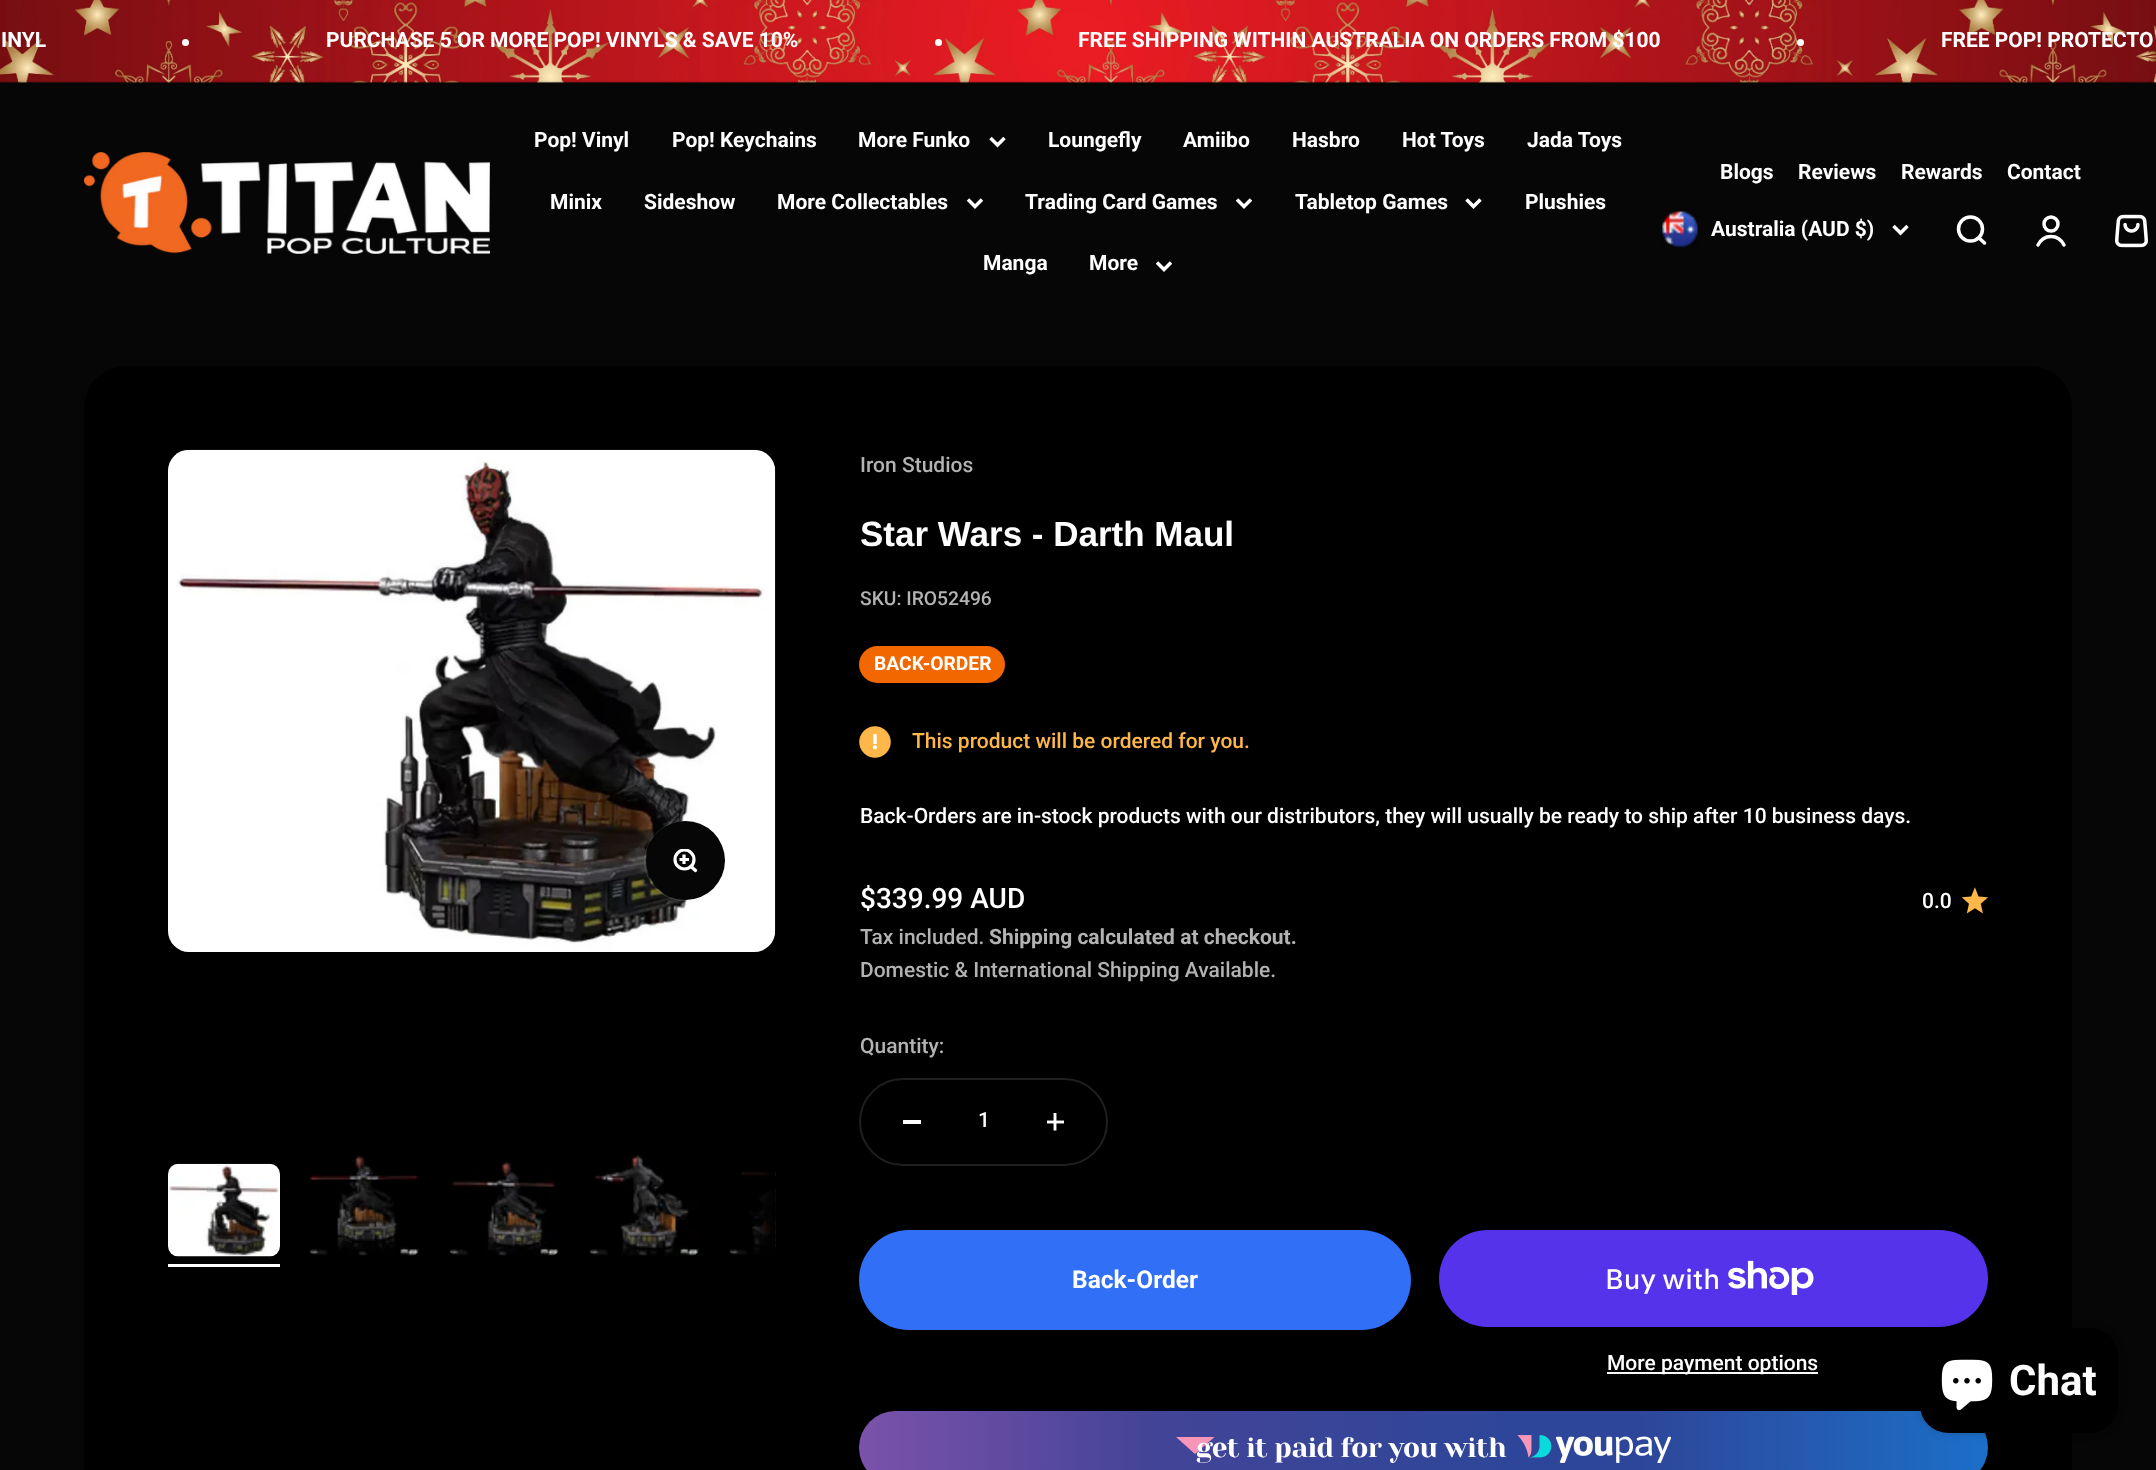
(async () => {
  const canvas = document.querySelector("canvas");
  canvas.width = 2156;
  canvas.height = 1470;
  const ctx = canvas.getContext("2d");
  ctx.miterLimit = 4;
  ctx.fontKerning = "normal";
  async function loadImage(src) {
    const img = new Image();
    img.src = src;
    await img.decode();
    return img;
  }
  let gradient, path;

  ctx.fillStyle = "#060606";
  ctx.fillRect(0, 0, 2156, 1470);
  ctx.drawImage(await loadImage("img/1.png"), 0, 0, 2156, 83);
  ctx.fillStyle = "#ffffff";
  ctx.beginPath();
  ctx.arc(185.5, 42.5, 3.5, 0, Math.PI * 2);
  ctx.fill();
  ctx.beginPath();
  ctx.arc(938.5, 42.5, 3.5, 0, Math.PI * 2);
  ctx.fill();
  ctx.beginPath();
  ctx.arc(1800.5, 42.5, 3.5, 0, Math.PI * 2);
  ctx.fill();
  ctx.drawImage(await loadImage("img/2.png"), 84, 152, 406, 102);
  path = new Path2D("M990.5 138L997.5 145L1004.5 138");
  ctx.strokeStyle = "#ffffff";
  ctx.lineWidth = 3.5;
  ctx.stroke(path);
  path = new Path2D("M968 199.5L975 206.5L982 199.5");
  ctx.stroke(path);
  path = new Path2D("M1237 199.5L1244 206.5L1251 199.5");
  ctx.stroke(path);
  path = new Path2D("M1466.5 199.5L1473.5 206.5L1480.5 199.5");
  ctx.stroke(path);
  path = new Path2D("M1157 262.5L1164 269.5L1171 262.5");
  ctx.stroke(path);
  ctx.drawImage(await loadImage("img/3.png"), 1662, 211, 36, 37);
  path = new Path2D("M1893.5 226L1900.5 233L1907.5 226");
  ctx.stroke(path);
  ctx.beginPath();
  ctx.arc(1970.5, 229, 12, 0, Math.PI * 2);
  ctx.stroke();
  path = new Path2D("M1979 238L1984.5 243");
  ctx.lineCap = "round";
  ctx.lineJoin = "round";
  ctx.stroke(path);
  ctx.beginPath();
  ctx.arc(2051, 224, 7, 0, Math.PI * 2);
  ctx.stroke();
  path = new Path2D("M2038 245C2043.5 233.5 2058.5 233.5 2064 245");
  ctx.lineJoin = "miter";
  ctx.stroke(path);
  ctx.drawImage(await loadImage("img/4.png"), 2115, 214, 33, 34);
  ctx.fillStyle = "#000000";
  ctx.beginPath();
  ctx.roundRect(84, 366, 1988, 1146, 42);
  ctx.fill();
  ctx.drawImage(await loadImage("img/5.png"), 168, 449, 608, 503);
  ctx.beginPath();
  ctx.roundRect(644.5, 821.5, 80, 79, 39.5);
  ctx.strokeStyle = "rgba(255, 255, 255, 0.12)";
  ctx.lineWidth = 1;
  ctx.stroke();
  ctx.fillStyle = "#060606";
  ctx.beginPath();
  ctx.arc(685.5, 860.5, 39.5, 0, Math.PI * 2);
  ctx.fill();
  ctx.save();
  ctx.beginPath();
  ctx.rect(672, 849, 25, 24);
  ctx.clip();
  ctx.beginPath();
  ctx.arc(684.5, 859.5, 9.5, 0, Math.PI * 2);
  ctx.strokeStyle = "#ffffff";
  ctx.lineWidth = 3.2;
  ctx.stroke();
  ctx.restore();
  path = new Path2D("M691 866.5L695.5 870.5");
  ctx.strokeStyle = "#ffffff";
  ctx.lineWidth = 3.2;
  ctx.lineJoin = "round";
  ctx.stroke(path);
  path = new Path2D("M684 854.5V864M679.5 859.5H689");
  ctx.lineCap = "butt";
  ctx.lineJoin = "miter";
  ctx.stroke(path);
  ctx.drawImage(await loadImage("img/6.png"), 168, 1163, 112, 94);
  ctx.fillStyle = "#ffffff";
  ctx.fillRect(168, 1264, 112, 3);
  ctx.drawImage(await loadImage("img/7.png"), 309, 1155, 110, 101);
  ctx.drawImage(await loadImage("img/8.png"), 449, 1161, 110, 95);
  ctx.drawImage(await loadImage("img/9.png"), 589, 1154, 110, 102);
  ctx.drawImage(await loadImage("img/10.png"), 729, 1171, 47, 85);
  gradient = ctx.createLinearGradient(775, 1131, 723, 1131);
  gradient.addColorStop(0, "#000000");
  gradient.addColorStop(1, "rgba(0, 0, 0, 0)");
  ctx.fillStyle = gradient;
  ctx.fillRect(730, 1171, 45, 85);
  ctx.fillStyle = "#f36700";
  ctx.beginPath();
  ctx.roundRect(859, 646, 146, 37, 18.5);
  ctx.fill();
  ctx.drawImage(await loadImage("img/11.png"), 859, 726, 32, 32);
  ctx.drawImage(await loadImage("img/12.png"), 1962, 887, 26, 27);
  ctx.beginPath();
  ctx.roundRect(860, 1079, 247, 86, 43);
  ctx.strokeStyle = "#1f1f1f";
  ctx.lineWidth = 2;
  ctx.stroke();
  ctx.fillStyle = "#ffffff";
  ctx.fillRect(903, 1120, 18, 4);
  path = new Path2D("M1055 1113V1130.5");
  ctx.strokeStyle = "#ffffff";
  ctx.lineWidth = 2.9;
  ctx.stroke(path);
  ctx.save();
  ctx.beginPath();
  ctx.rect(1047, 1113, 17, 18);
  ctx.clip();
  path = new Path2D("M1046.5 1122H1064");
  ctx.stroke(path);
  ctx.restore();
  ctx.fillStyle = "#316ff6";
  ctx.beginPath();
  ctx.roundRect(859, 1230, 552, 100, 50);
  ctx.fill();
  ctx.fillStyle = "#5433eb";
  ctx.beginPath();
  ctx.roundRect(1439, 1230, 549, 97, 48.5);
  ctx.fill();
  ctx.drawImage(await loadImage("img/13.png"), 1728, 1260, 86, 35);
  ctx.fillStyle = "#ffffff";
  ctx.fillRect(1607, 1372, 211, 2);
  gradient = ctx.createLinearGradient(859, 1447, 1988, 1447);
  gradient.addColorStop(0, "#7b52aa");
  gradient.addColorStop(0.26, "#434497");
  gradient.addColorStop(0.57, "#2e4699");
  gradient.addColorStop(0.69, "#2e4699");
  gradient.addColorStop(1, "#1b6fc8");
  ctx.fillStyle = gradient;
  ctx.beginPath();
  ctx.roundRect(859, 1411, 1129, 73, 36.5);
  ctx.fill();
  ctx.fillStyle = "#f796b9";
  path = new Path2D("M1176 1437H1214.5L1195 1454Z");
  ctx.fill(path);
  ctx.drawImage(await loadImage("img/14.png"), 1517, 1435, 154, 28);
  ctx.fillStyle = "rgba(0, 0, 0, 0.15)";
  ctx.filter = "blur(4.5px)";
  ctx.beginPath();
  ctx.roundRect(1920, 1328, 198, 105, 28);
  ctx.fill();
  ctx.filter = "none";
  ctx.fillStyle = "#000000";
  ctx.beginPath();
  ctx.roundRect(1920, 1328, 198, 105, 28);
  ctx.fill();
  ctx.drawImage(await loadImage("img/15.png"), 1941, 1359, 52, 52);
  ctx.font = "bold 21px Roboto";
  ctx.fillStyle = "#ffffff";
  for (const [text, x, y] of [
    ["INYL", 1, 47],
    ["PURCHASE 5 OR MORE POP! VINYLS & SAVE 10%", 326, 47],
    ["FREE SHIPPING WITHIN AUSTRALIA ON ORDERS FROM $100", 1078, 47],
    ["FREE POP! PROTECTO", 1941, 47],
    ["Pop! Vinyl", 534, 147],
    ["Pop! Keychains", 672, 147],
    ["More Funko", 858, 147],
    ["Loungefly", 1048, 147],
    ["Amiibo", 1183, 147],
    ["Hasbro", 1292, 147],
    ["Hot Toys", 1402, 147],
    ["Jada Toys", 1527, 147],
    ["Minix", 550, 209],
    ["Sideshow", 644, 209],
    ["More Collectables", 777, 209],
    ["Trading Card Games", 1025, 209],
    ["Tabletop Games", 1295, 209],
    ["Plushies", 1525, 209],
    ["Manga", 983, 270],
    ["More", 1089, 270],
    ["Blogs", 1720, 179],
    ["Reviews", 1798, 179],
    ["Rewards", 1901, 179],
    ["Contact", 2007, 179],
    ["Australia (AUD $)", 1711, 236],
  ]) {
    ctx.fillText(text, x, y);
  }
  ctx.font = "500 21px Roboto";
  ctx.fillStyle = "#b3b3b3";
  ctx.fillText("Iron Studios", 860, 472);
  ctx.font = "bold 35px Liberation Sans";
  ctx.fillStyle = "#ffffff";
  ctx.fillText("Star Wars - Darth Maul", 860, 546);
  ctx.font = "500 19.25px Roboto";
  ctx.fillStyle = "#b3b3b3";
  ctx.fillText("SKU: IRO52496", 860, 605);
  ctx.font = "bold 19.25px Roboto";
  ctx.fillStyle = "#ffffff";
  ctx.fillText("BACK-ORDER", 874, 670);
  ctx.font = "500 21px Roboto";
  ctx.fillStyle = "#ffb74a";
  ctx.fillText("This product will be ordered for you.", 912, 748);
  ctx.fillStyle = "#ffffff";
  ctx.fillText("Back-Orders are in-stock products with our distributors, they will usually be ready to ship after 10 business days.", 860, 823);
  ctx.font = "500 28px Roboto";
  ctx.fillText("$339.99 AUD", 860, 908);
  ctx.font = "500 21px Roboto";
  ctx.fillText("0.0", 1922, 908);
  ctx.fillStyle = "#b3b3b3";
  ctx.fillText("Tax included.", 860, 944);
  ctx.font = "bold 21px Roboto";
  ctx.fillText("Shipping calculated at checkout.", 989, 944);
  ctx.font = "500 21px Roboto";
  ctx.fillText("Domestic & International Shipping Available.", 860, 977);
  ctx.fillText("Quantity:", 860, 1053);
  ctx.fillStyle = "#ffffff";
  ctx.fillText("1", 978, 1127);
  ctx.font = "bold 24.5px Roboto";
  ctx.fillText("Back-Order", 1072, 1288);
  ctx.font = "500 28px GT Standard";
  ctx.fillText("Buy with", 1605, 1289);
  ctx.font = "500 21px Roboto";
  ctx.fillText("More payment options", 1607, 1370);
  ctx.letterSpacing = "-0.6px";
  ctx.font = "28px Yeseva One";
  ctx.fillText("get it paid for you with", 1196, 1457);
  ctx.letterSpacing = "0px";
  ctx.font = "bold 42px Roboto";
  ctx.fillText("Chat", 2009, 1395);
})();
